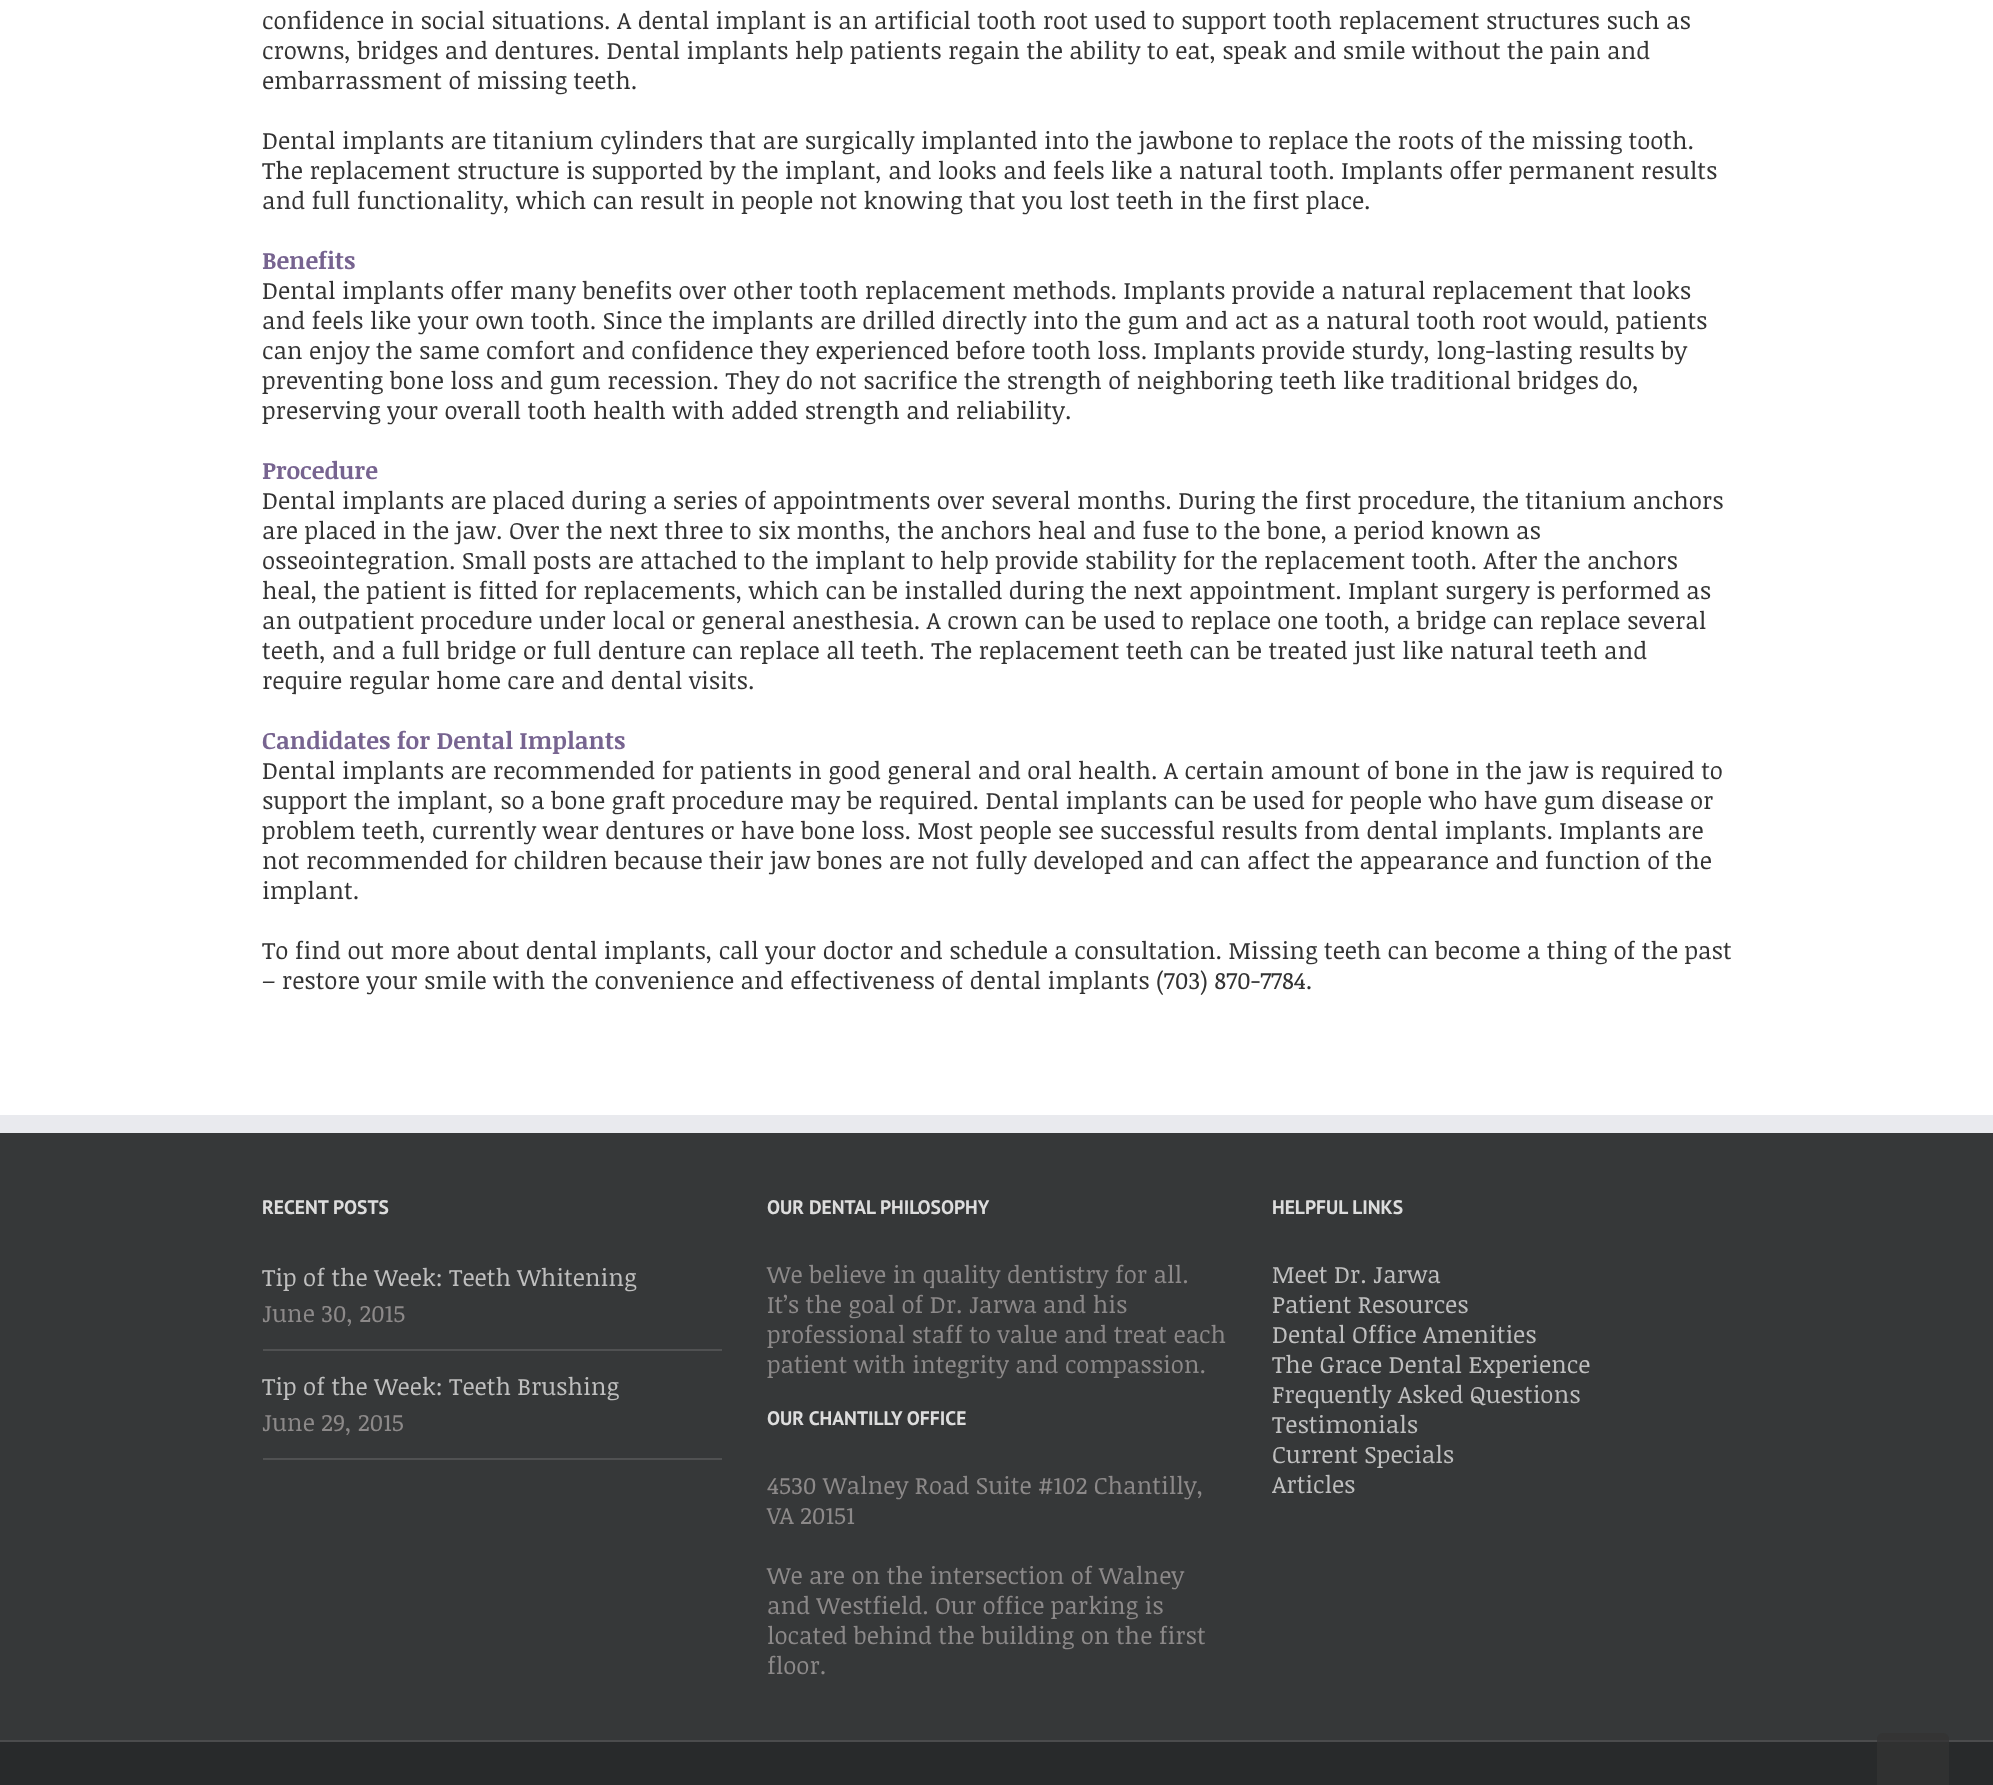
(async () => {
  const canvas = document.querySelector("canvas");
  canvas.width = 1993;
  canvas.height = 1785;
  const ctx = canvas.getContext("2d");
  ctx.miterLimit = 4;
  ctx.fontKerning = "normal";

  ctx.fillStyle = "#ffffff";
  ctx.fillRect(0, 0, 1993, 1785);
  for (const [x, y, w, h, color] of [
    [0, 1133, 1993, 607, "#363839"],
    [0, 1115, 1993, 18, "#e9eaee"],
    [263, 1349, 459, 2, "#505152"],
    [263, 1458, 459, 2, "#505152"],
    [0, 1742, 1993, 43, "#282a2b"],
    [0, 1740, 1993, 2, "#4b4c4d"],
  ]) {
    ctx.fillStyle = color;
    ctx.fillRect(x, y, w, h);
  }
  ctx.fillStyle = "rgba(51, 51, 51, 0.78)";
  ctx.beginPath();
  ctx.roundRect(1877, 1733, 72, 52, [6, 6, 0, 0]);
  ctx.fill();
  ctx.font = "24px Noticia Text";
  ctx.fillStyle = "#333333";
  for (const [text, x, y] of [
    ["confidence in social situations. A dental implant is an artificial tooth root used to support tooth replacement structures such as", 262, 29],
    ["crowns, bridges and dentures. Dental implants help patients regain the ability to eat, speak and smile without the pain and", 262, 59],
    ["embarrassment of missing teeth.", 262, 89],
    ["Dental implants are titanium cylinders that are surgically implanted into the jawbone to replace the roots of the missing tooth.", 262, 149],
    ["The replacement structure is supported by the implant, and looks and feels like a natural tooth. Implants offer permanent results", 262, 179],
    ["and full functionality, which can result in people not knowing that you lost teeth in the first place.", 262, 209],
  ]) {
    ctx.fillText(text, x, y);
  }
  ctx.font = "bold 24px Noticia Text";
  ctx.fillStyle = "#776490";
  ctx.fillText("Benefits", 262, 269);
  ctx.font = "24px Noticia Text";
  ctx.fillStyle = "#333333";
  for (const [text, x, y] of [
    ["Dental implants offer many benefits over other tooth replacement methods. Implants provide a natural replacement that looks", 262, 299],
    ["and feels like your own tooth. Since the implants are drilled directly into the gum and act as a natural tooth root would, patients", 262, 329],
    ["can enjoy the same comfort and confidence they experienced before tooth loss. Implants provide sturdy, long-lasting results by", 262, 359],
    ["preventing bone loss and gum recession. They do not sacrifice the strength of neighboring teeth like traditional bridges do,", 262, 389],
    ["preserving your overall tooth health with added strength and reliability.", 262, 419],
  ]) {
    ctx.fillText(text, x, y);
  }
  ctx.font = "bold 24px Noticia Text";
  ctx.fillStyle = "#776490";
  ctx.fillText("Procedure", 262, 479);
  ctx.font = "24px Noticia Text";
  ctx.fillStyle = "#333333";
  for (const [text, x, y] of [
    ["Dental implants are placed during a series of appointments over several months. During the first procedure, the titanium anchors", 262, 509],
    ["are placed in the jaw. Over the next three to six months, the anchors heal and fuse to the bone, a period known as", 262, 539],
    ["osseointegration. Small posts are attached to the implant to help provide stability for the replacement tooth. After the anchors", 262, 569],
    ["heal, the patient is fitted for replacements, which can be installed during the next appointment. Implant surgery is performed as", 262, 599],
    ["an outpatient procedure under local or general anesthesia. A crown can be used to replace one tooth, a bridge can replace several", 262, 629],
    ["teeth, and a full bridge or full denture can replace all teeth. The replacement teeth can be treated just like natural teeth and", 262, 659],
    ["require regular home care and dental visits.", 262, 689],
  ]) {
    ctx.fillText(text, x, y);
  }
  ctx.font = "bold 24px Noticia Text";
  ctx.fillStyle = "#776490";
  ctx.fillText("Candidates for Dental Implants", 262, 749);
  ctx.font = "24px Noticia Text";
  ctx.fillStyle = "#333333";
  for (const [text, x, y] of [
    ["Dental implants are recommended for patients in good general and oral health. A certain amount of bone in the jaw is required to", 262, 779],
    ["support the implant, so a bone graft procedure may be required. Dental implants can be used for people who have gum disease or", 262, 809],
    ["problem teeth, currently wear dentures or have bone loss. Most people see successful results from dental implants. Implants are", 262, 839],
    ["not recommended for children because their jaw bones are not fully developed and can affect the appearance and function of the", 262, 869],
    ["implant.", 262, 899],
    ["To find out more about dental implants, call your doctor and schedule a consultation. Missing teeth can become a thing of the past", 262, 959],
    ["– restore your smile with the convenience and effectiveness of dental implants (703) 870-7784.", 262, 989],
  ]) {
    ctx.fillText(text, x, y);
  }
  ctx.font = "bold 19.5px PT Sans";
  ctx.fillStyle = "#dddddd";
  ctx.fillText("RECENT POSTS", 262, 1214);
  ctx.font = "24px Noticia Text";
  ctx.fillStyle = "#bfbfbf";
  ctx.fillText("Tip of the Week: Teeth Whitening", 262, 1286);
  ctx.fillStyle = "#8c8989";
  ctx.fillText("June 30, 2015", 262, 1322);
  ctx.fillStyle = "#bfbfbf";
  ctx.fillText("Tip of the Week: Teeth Brushing", 262, 1395);
  ctx.fillStyle = "#8c8989";
  ctx.fillText("June 29, 2015", 262, 1431);
  ctx.font = "bold 19.5px PT Sans";
  ctx.fillStyle = "#dddddd";
  ctx.fillText("OUR DENTAL PHILOSOPHY", 767, 1214);
  ctx.font = "24px Noticia Text";
  ctx.fillStyle = "#8c8989";
  for (const [text, x, y] of [
    ["We believe in quality dentistry for all.", 767, 1283],
    ["It’s the goal of Dr. Jarwa and his", 767, 1313],
    ["professional staff to value and treat each", 767, 1343],
    ["patient with integrity and compassion.", 767, 1373],
  ]) {
    ctx.fillText(text, x, y);
  }
  ctx.font = "bold 19.5px PT Sans";
  ctx.fillStyle = "#dddddd";
  ctx.fillText("OUR CHANTILLY OFFICE", 767, 1425);
  ctx.font = "24px Noticia Text";
  ctx.fillStyle = "#8c8989";
  for (const [text, x, y] of [
    ["4530 Walney Road Suite #102 Chantilly,", 767, 1494],
    ["VA 20151", 767, 1524],
    ["We are on the intersection of Walney", 767, 1584],
    ["and Westfield. Our office parking is", 767, 1614],
    ["located behind the building on the first", 767, 1644],
    ["floor.", 767, 1674],
  ]) {
    ctx.fillText(text, x, y);
  }
  ctx.font = "bold 19.5px PT Sans";
  ctx.fillStyle = "#dddddd";
  ctx.fillText("HELPFUL LINKS", 1272, 1214);
  ctx.font = "24px Noticia Text";
  ctx.fillStyle = "#bfbfbf";
  for (const [text, x, y] of [
    ["Meet Dr. Jarwa", 1272, 1283],
    ["Patient Resources", 1272, 1313],
    ["Dental Office Amenities", 1272, 1343],
    ["The Grace Dental Experience", 1272, 1373],
    ["Frequently Asked Questions", 1272, 1403],
    ["Testimonials", 1272, 1433],
    ["Current Specials", 1272, 1463],
    ["Articles", 1272, 1493],
  ]) {
    ctx.fillText(text, x, y);
  }
})();
